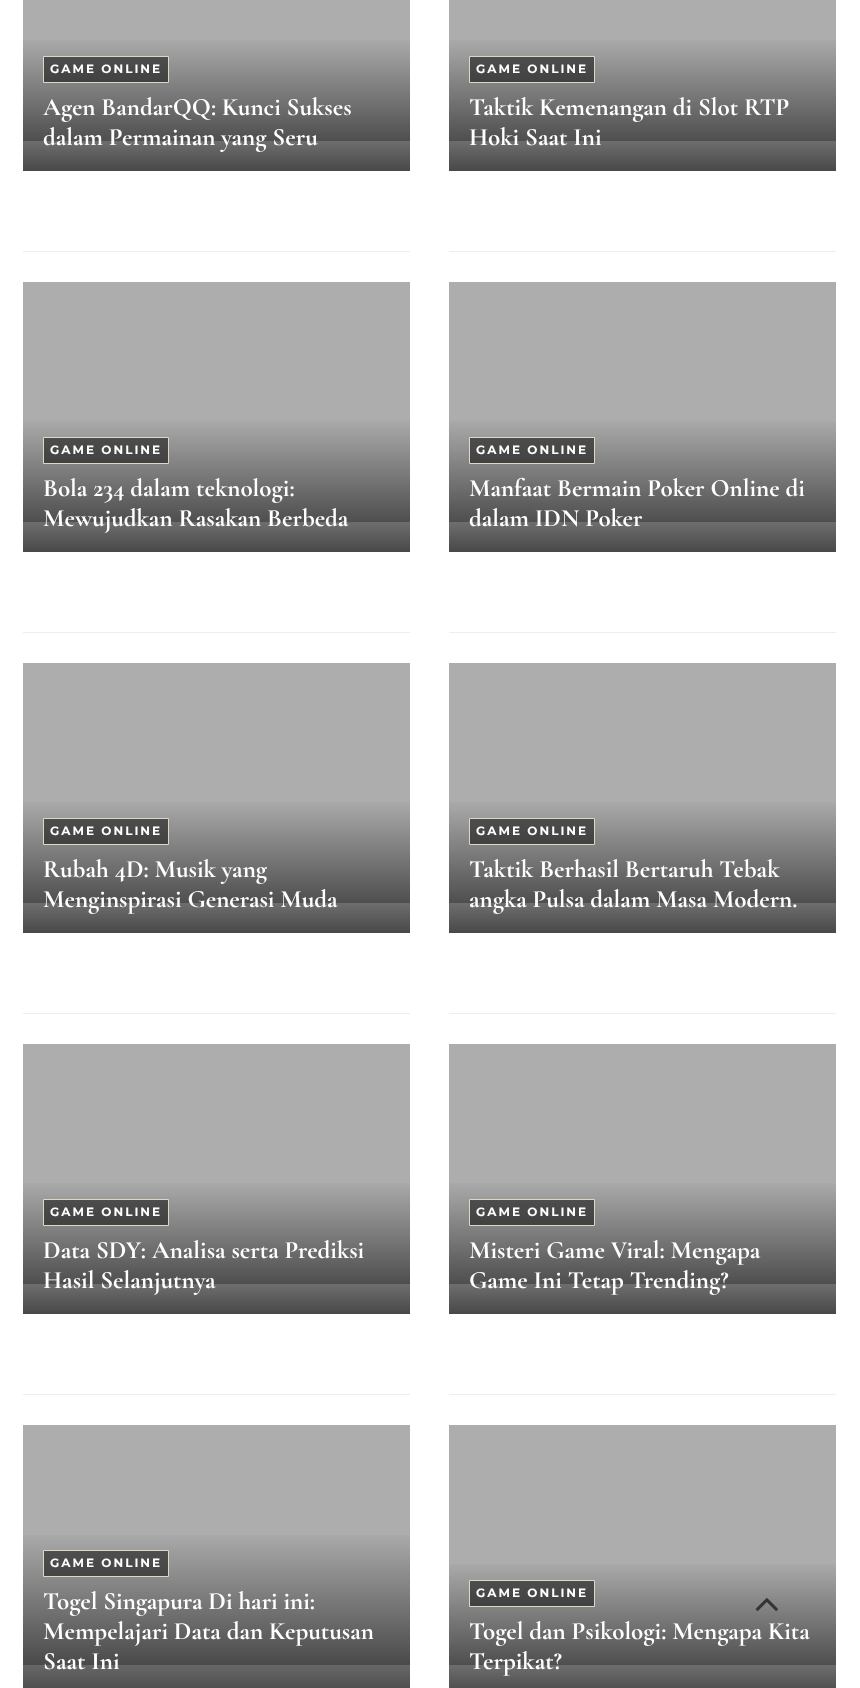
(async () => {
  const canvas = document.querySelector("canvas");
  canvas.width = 860;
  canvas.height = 1688;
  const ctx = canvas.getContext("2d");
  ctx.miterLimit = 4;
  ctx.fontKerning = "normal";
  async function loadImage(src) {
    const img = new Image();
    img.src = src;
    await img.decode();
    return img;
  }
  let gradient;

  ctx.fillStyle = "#ffffff";
  ctx.fillRect(0, 0, 860, 1688);
  for (const [x, y, w, h, color] of [
    [23, 251, 387, 1, "#eeeeee"],
    [23, 141, 387, 30, "#f2f2f2"],
    [23, 0, 387, 141, "#adadad"],
  ]) {
    ctx.fillStyle = color;
    ctx.fillRect(x, y, w, h);
  }
  gradient = ctx.createLinearGradient(217, 171, 217, 36);
  gradient.addColorStop(0, "rgba(0, 0, 0, 0.7)");
  gradient.addColorStop(1, "rgba(0, 0, 0, 0)");
  ctx.fillStyle = gradient;
  ctx.fillRect(23, 40, 387, 131);
  ctx.fillStyle = "rgba(0, 0, 0, 0.5)";
  ctx.beginPath();
  ctx.rect(43.5, 56.5, 125, 26);
  ctx.fill();
  ctx.strokeStyle = "#dfd6c5";
  ctx.stroke();
  for (const [x, y, w, h, color] of [
    [449, 251, 387, 1, "#eeeeee"],
    [449, 141, 387, 30, "#f2f2f2"],
    [449, 0, 387, 141, "#adadad"],
  ]) {
    ctx.fillStyle = color;
    ctx.fillRect(x, y, w, h);
  }
  gradient = ctx.createLinearGradient(643, 171, 643, 36);
  gradient.addColorStop(0, "rgba(0, 0, 0, 0.7)");
  gradient.addColorStop(1, "rgba(0, 0, 0, 0)");
  ctx.fillStyle = gradient;
  ctx.fillRect(449, 40, 387, 131);
  ctx.fillStyle = "rgba(0, 0, 0, 0.5)";
  ctx.beginPath();
  ctx.rect(469.5, 56.5, 125, 26);
  ctx.fill();
  ctx.stroke();
  for (const [x, y, w, h, color] of [
    [23, 632, 387, 1, "#eeeeee"],
    [23, 522, 387, 30, "#f2f2f2"],
    [23, 282, 387, 240, "#adadad"],
  ]) {
    ctx.fillStyle = color;
    ctx.fillRect(x, y, w, h);
  }
  gradient = ctx.createLinearGradient(217, 552, 217, 417);
  gradient.addColorStop(0, "rgba(0, 0, 0, 0.7)");
  gradient.addColorStop(1, "rgba(0, 0, 0, 0)");
  ctx.fillStyle = gradient;
  ctx.fillRect(23, 421, 387, 131);
  ctx.fillStyle = "rgba(0, 0, 0, 0.5)";
  ctx.beginPath();
  ctx.rect(43.5, 437.5, 125, 26);
  ctx.fill();
  ctx.stroke();
  for (const [x, y, w, h, color] of [
    [449, 632, 387, 1, "#eeeeee"],
    [449, 522, 387, 30, "#f2f2f2"],
    [449, 282, 387, 240, "#adadad"],
  ]) {
    ctx.fillStyle = color;
    ctx.fillRect(x, y, w, h);
  }
  gradient = ctx.createLinearGradient(643, 552, 643, 417);
  gradient.addColorStop(0, "rgba(0, 0, 0, 0.7)");
  gradient.addColorStop(1, "rgba(0, 0, 0, 0)");
  ctx.fillStyle = gradient;
  ctx.fillRect(449, 421, 387, 131);
  ctx.fillStyle = "rgba(0, 0, 0, 0.5)";
  ctx.beginPath();
  ctx.rect(469.5, 437.5, 125, 26);
  ctx.fill();
  ctx.stroke();
  for (const [x, y, w, h, color] of [
    [23, 1013, 387, 1, "#eeeeee"],
    [23, 903, 387, 30, "#f2f2f2"],
    [23, 663, 387, 240, "#adadad"],
  ]) {
    ctx.fillStyle = color;
    ctx.fillRect(x, y, w, h);
  }
  gradient = ctx.createLinearGradient(217, 933, 217, 798);
  gradient.addColorStop(0, "rgba(0, 0, 0, 0.7)");
  gradient.addColorStop(1, "rgba(0, 0, 0, 0)");
  ctx.fillStyle = gradient;
  ctx.fillRect(23, 802, 387, 131);
  ctx.fillStyle = "rgba(0, 0, 0, 0.5)";
  ctx.beginPath();
  ctx.rect(43.5, 818.5, 125, 26);
  ctx.fill();
  ctx.stroke();
  for (const [x, y, w, h, color] of [
    [449, 1013, 387, 1, "#eeeeee"],
    [449, 903, 387, 30, "#f2f2f2"],
    [449, 663, 387, 240, "#adadad"],
  ]) {
    ctx.fillStyle = color;
    ctx.fillRect(x, y, w, h);
  }
  gradient = ctx.createLinearGradient(643, 933, 643, 798);
  gradient.addColorStop(0, "rgba(0, 0, 0, 0.7)");
  gradient.addColorStop(1, "rgba(0, 0, 0, 0)");
  ctx.fillStyle = gradient;
  ctx.fillRect(449, 802, 387, 131);
  ctx.fillStyle = "rgba(0, 0, 0, 0.5)";
  ctx.beginPath();
  ctx.rect(469.5, 818.5, 125, 26);
  ctx.fill();
  ctx.stroke();
  for (const [x, y, w, h, color] of [
    [23, 1394, 387, 1, "#eeeeee"],
    [23, 1284, 387, 30, "#f2f2f2"],
    [23, 1044, 387, 240, "#adadad"],
  ]) {
    ctx.fillStyle = color;
    ctx.fillRect(x, y, w, h);
  }
  gradient = ctx.createLinearGradient(217, 1314, 217, 1179);
  gradient.addColorStop(0, "rgba(0, 0, 0, 0.7)");
  gradient.addColorStop(1, "rgba(0, 0, 0, 0)");
  ctx.fillStyle = gradient;
  ctx.fillRect(23, 1183, 387, 131);
  ctx.fillStyle = "rgba(0, 0, 0, 0.5)";
  ctx.beginPath();
  ctx.rect(43.5, 1199.5, 125, 26);
  ctx.fill();
  ctx.stroke();
  for (const [x, y, w, h, color] of [
    [449, 1394, 387, 1, "#eeeeee"],
    [449, 1284, 387, 30, "#f2f2f2"],
    [449, 1044, 387, 240, "#adadad"],
  ]) {
    ctx.fillStyle = color;
    ctx.fillRect(x, y, w, h);
  }
  gradient = ctx.createLinearGradient(643, 1314, 643, 1179);
  gradient.addColorStop(0, "rgba(0, 0, 0, 0.7)");
  gradient.addColorStop(1, "rgba(0, 0, 0, 0)");
  ctx.fillStyle = gradient;
  ctx.fillRect(449, 1183, 387, 131);
  ctx.fillStyle = "rgba(0, 0, 0, 0.5)";
  ctx.beginPath();
  ctx.rect(469.5, 1199.5, 125, 26);
  ctx.fill();
  ctx.stroke();
  ctx.fillStyle = "#f2f2f2";
  ctx.fillRect(23, 1665, 387, 23);
  ctx.fillStyle = "#adadad";
  ctx.fillRect(23, 1425, 387, 240);
  gradient = ctx.createLinearGradient(217, 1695, 217, 1530);
  gradient.addColorStop(0, "rgba(0, 0, 0, 0.7)");
  gradient.addColorStop(1, "rgba(0, 0, 0, 0)");
  ctx.fillStyle = gradient;
  ctx.fillRect(23, 1535, 387, 153);
  ctx.fillStyle = "rgba(0, 0, 0, 0.5)";
  ctx.beginPath();
  ctx.rect(43.5, 1550.5, 125, 26);
  ctx.fill();
  ctx.stroke();
  ctx.fillStyle = "#f2f2f2";
  ctx.fillRect(449, 1665, 387, 23);
  ctx.fillStyle = "#adadad";
  ctx.fillRect(449, 1425, 387, 240);
  gradient = ctx.createLinearGradient(643, 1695, 643, 1560);
  gradient.addColorStop(0, "rgba(0, 0, 0, 0.7)");
  gradient.addColorStop(1, "rgba(0, 0, 0, 0)");
  ctx.fillStyle = gradient;
  ctx.fillRect(449, 1564, 387, 124);
  ctx.fillStyle = "rgba(0, 0, 0, 0.5)";
  ctx.beginPath();
  ctx.rect(469.5, 1580.5, 125, 26);
  ctx.fill();
  ctx.stroke();
  ctx.drawImage(await loadImage("img/1.png"), 755, 1598, 23, 13);
  ctx.letterSpacing = "2px";
  ctx.font = "100 12px Montserrat";
  ctx.fillStyle = "#ffffff";
  ctx.fillText("GAME ONLINE", 50, 73);
  ctx.letterSpacing = "0px";
  ctx.font = "bold 25px Cormorant Garamond";
  ctx.fillText("Agen BandarQQ: Kunci Sukses", 43, 115);
  ctx.fillText("dalam Permainan yang Seru", 43, 145);
  ctx.letterSpacing = "2px";
  ctx.font = "100 12px Montserrat";
  ctx.fillText("GAME ONLINE", 476, 73);
  ctx.letterSpacing = "0px";
  ctx.font = "bold 25px Cormorant Garamond";
  ctx.fillText("Taktik Kemenangan di Slot RTP", 469, 115);
  ctx.fillText("Hoki Saat Ini", 469, 145);
  ctx.letterSpacing = "2px";
  ctx.font = "100 12px Montserrat";
  ctx.fillText("GAME ONLINE", 50, 454);
  ctx.letterSpacing = "0px";
  ctx.font = "bold 25px Cormorant Garamond";
  ctx.fillText("Bola 234 dalam teknologi:", 43, 496);
  ctx.fillText("Mewujudkan Rasakan Berbeda", 43, 526);
  ctx.letterSpacing = "2px";
  ctx.font = "100 12px Montserrat";
  ctx.fillText("GAME ONLINE", 476, 454);
  ctx.letterSpacing = "0px";
  ctx.font = "bold 25px Cormorant Garamond";
  ctx.fillText("Manfaat Bermain Poker Online di", 469, 496);
  ctx.fillText("dalam IDN Poker", 469, 526);
  ctx.letterSpacing = "2px";
  ctx.font = "100 12px Montserrat";
  ctx.fillText("GAME ONLINE", 50, 835);
  ctx.letterSpacing = "0px";
  ctx.font = "bold 25px Cormorant Garamond";
  ctx.fillText("Rubah 4D: Musik yang", 43, 877);
  ctx.fillText("Menginspirasi Generasi Muda", 43, 907);
  ctx.letterSpacing = "2px";
  ctx.font = "100 12px Montserrat";
  ctx.fillText("GAME ONLINE", 476, 835);
  ctx.letterSpacing = "0px";
  ctx.font = "bold 25px Cormorant Garamond";
  ctx.fillText("Taktik Berhasil Bertaruh Tebak", 469, 877);
  ctx.fillText("angka Pulsa dalam Masa Modern.", 469, 907);
  ctx.letterSpacing = "2px";
  ctx.font = "100 12px Montserrat";
  ctx.fillText("GAME ONLINE", 50, 1216);
  ctx.letterSpacing = "0px";
  ctx.font = "bold 25px Cormorant Garamond";
  ctx.fillText("Data SDY: Analisa serta Prediksi", 43, 1258);
  ctx.fillText("Hasil Selanjutnya", 43, 1288);
  ctx.letterSpacing = "2px";
  ctx.font = "100 12px Montserrat";
  ctx.fillText("GAME ONLINE", 476, 1216);
  ctx.letterSpacing = "0px";
  ctx.font = "bold 25px Cormorant Garamond";
  ctx.fillText("Misteri Game Viral: Mengapa", 469, 1258);
  ctx.fillText("Game Ini Tetap Trending?", 469, 1288);
  ctx.letterSpacing = "2px";
  ctx.font = "100 12px Montserrat";
  ctx.fillText("GAME ONLINE", 50, 1567);
  ctx.letterSpacing = "0px";
  ctx.font = "bold 25px Cormorant Garamond";
  for (const [text, x, y] of [
    ["Togel Singapura Di hari ini:", 43, 1609],
    ["Mempelajari Data dan Keputusan", 43, 1639],
    ["Saat Ini", 43, 1669],
  ]) {
    ctx.fillText(text, x, y);
  }
  ctx.letterSpacing = "2px";
  ctx.font = "100 12px Montserrat";
  ctx.fillText("GAME ONLINE", 476, 1597);
  ctx.letterSpacing = "0px";
  ctx.font = "bold 25px Cormorant Garamond";
  ctx.fillText("Togel dan Psikologi: Mengapa Kita", 469, 1639);
  ctx.fillText("Terpikat?", 469, 1669);
})();
